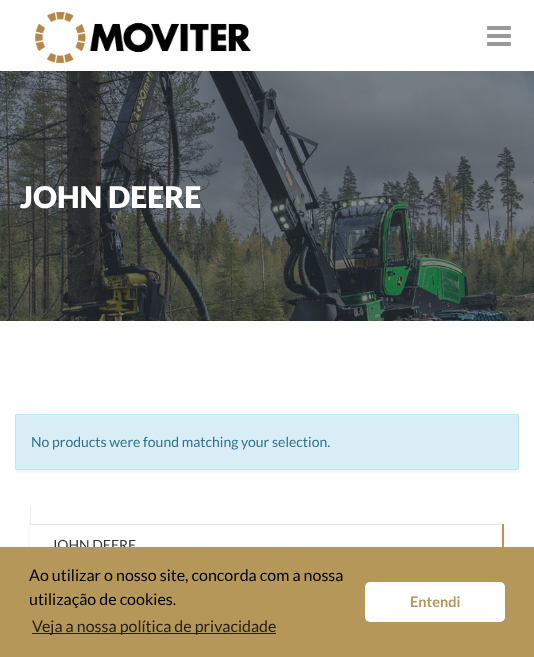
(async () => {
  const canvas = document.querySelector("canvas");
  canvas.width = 534;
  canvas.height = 657;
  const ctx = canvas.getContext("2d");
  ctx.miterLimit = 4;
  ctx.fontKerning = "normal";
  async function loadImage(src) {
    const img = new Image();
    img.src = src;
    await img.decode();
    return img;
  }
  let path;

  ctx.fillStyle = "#ffffff";
  ctx.fillRect(0, 0, 534, 657);
  ctx.drawImage(await loadImage("img/1.png"), 35, 12, 216, 51);
  ctx.drawImage(await loadImage("img/2.png"), 487, 26, 24, 20);
  ctx.drawImage(await loadImage("img/3.png"), 0, 71, 534, 250);
  ctx.fillStyle = "rgba(0, 0, 0, 0.05)";
  ctx.filter = "blur(1.5px)";
  ctx.beginPath();
  ctx.roundRect(15, 416, 504, 56, 2);
  ctx.fill();
  ctx.filter = "none";
  ctx.fillStyle = "#d9edf7";
  ctx.beginPath();
  ctx.roundRect(15, 414, 504, 56, 2);
  ctx.fill();
  ctx.fillStyle = "#dff0f8";
  path = new Path2D("M17 416H517C518 416 518 416 518 417C518 416 518 415 517 415H17L16 416V417C16 416 16 416 17 416Z");
  ctx.fill(path);
  ctx.beginPath();
  ctx.roundRect(15.5, 414.5, 503, 55, 1.5);
  ctx.strokeStyle = "#bce8f1";
  ctx.stroke();
  ctx.fillStyle = "#eeeeee";
  ctx.fillRect(30, 505, 1, 19);
  ctx.fillStyle = "rgba(0, 0, 0, 0.05)";
  ctx.filter = "blur(1.5px)";
  ctx.beginPath();
  ctx.rect(29, 524, 474, 41);
  ctx.fill();
  ctx.filter = "none";
  ctx.fillStyle = "#ffffff";
  ctx.fillRect(30, 524, 472, 23);
  ctx.fillStyle = "#e8e8e8";
  path = new Path2D("M30 524H504L503 525H31Z");
  ctx.fill(path);
  ctx.fillStyle = "#b59859";
  ctx.fillRect(502, 524, 2, 23);
  ctx.font = "900 30px Lato";
  ctx.fillStyle = "#ffffff";
  ctx.fillText("JOHN DEERE", 20, 208);
  ctx.font = "14px Lato";
  ctx.fillStyle = "#31708f";
  ctx.fillText("No products were found matching your selection.", 31, 447);
  ctx.fillStyle = "#2f3438";
  ctx.fillText("JOHN DEERE", 51, 550);
  ctx.fillStyle = "#b59859";
  ctx.fillRect(0, 547, 534, 110);
  ctx.font = "16px Lato";
  ctx.fillStyle = "#000000";
  ctx.fillText("Ao utilizar o nosso site, concorda com a nossa", 29, 581);
  ctx.fillText("utilização de cookies.", 29, 605);
  ctx.fillStyle = "#241e12";
  ctx.fillRect(32, 633, 244, 1);
  ctx.fillText("Veja a nossa política de privacidade", 32, 632);
  ctx.fillStyle = "#ffffff";
  ctx.beginPath();
  ctx.roundRect(365, 582, 140, 40, 5);
  ctx.fill();
  ctx.font = "bold 14.5px Lato";
  ctx.fillStyle = "#b59859";
  ctx.fillText("Entendi", 410, 607);
})();
